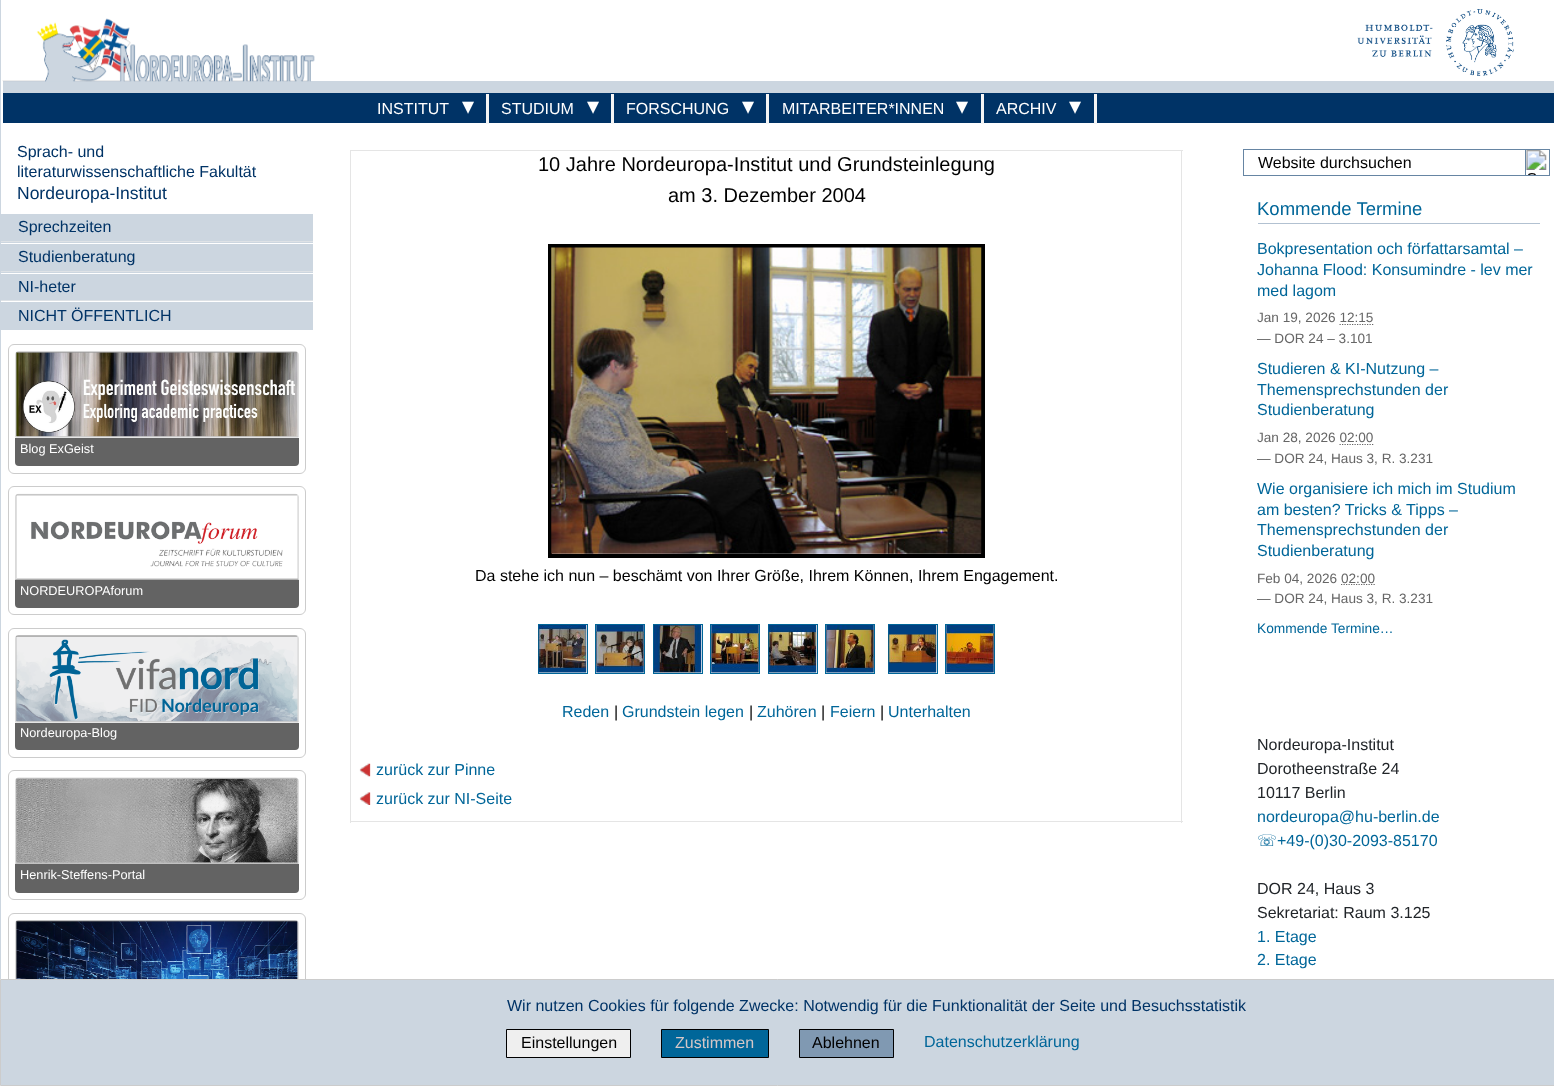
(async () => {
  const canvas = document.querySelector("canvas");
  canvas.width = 1554;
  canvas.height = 1086;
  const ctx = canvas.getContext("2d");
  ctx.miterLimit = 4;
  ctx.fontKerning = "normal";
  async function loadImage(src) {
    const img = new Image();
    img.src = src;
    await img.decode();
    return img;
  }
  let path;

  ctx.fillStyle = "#ffffff";
  ctx.fillRect(0, 0, 1554, 1086);
  for (const [x, y, w, h, color] of [
    [0, 0, 1, 979, "#ccd6e0"],
    [1, 214, 312, 27, "#ccd6e0"],
    [1, 242, 312, 29, "#ccd6e0"],
    [1, 241, 312, 1, "#dee2e6"],
    [1, 243, 312, 1, "#ffffff"],
    [1, 272, 312, 28, "#ccd6e0"],
    [1, 271, 312, 1, "#dee2e6"],
    [1, 273, 312, 1, "#ffffff"],
    [1, 302, 312, 28, "#ccd6e0"],
    [1, 300, 312, 1, "#dee2e6"],
  ]) {
    ctx.fillStyle = color;
    ctx.fillRect(x, y, w, h);
  }
  ctx.beginPath();
  ctx.roundRect(8.5, 344.5, 297, 129, 5.5);
  ctx.strokeStyle = "#cccccc";
  ctx.stroke();
  ctx.drawImage(await loadImage("img/1.png"), 15, 351, 284, 87);
  ctx.fillStyle = "#636363";
  ctx.beginPath();
  ctx.roundRect(15, 438, 284, 28, [0, 0, 4, 4]);
  ctx.fill();
  ctx.beginPath();
  ctx.roundRect(8.5, 486.5, 297, 128, 5.5);
  ctx.stroke();
  ctx.drawImage(await loadImage("img/2.png"), 15, 493, 284, 87);
  ctx.beginPath();
  ctx.roundRect(15, 580, 284, 28, [0, 0, 4, 4]);
  ctx.fill();
  ctx.beginPath();
  ctx.roundRect(8.5, 628.5, 297, 129, 5.5);
  ctx.stroke();
  ctx.drawImage(await loadImage("img/3.png"), 15, 635, 284, 88);
  ctx.beginPath();
  ctx.roundRect(15, 723, 284, 27, [0, 0, 4, 4]);
  ctx.fill();
  ctx.beginPath();
  ctx.roundRect(8.5, 770.5, 297, 129, 5.5);
  ctx.stroke();
  ctx.drawImage(await loadImage("img/4.png"), 15, 777, 284, 87);
  ctx.beginPath();
  ctx.roundRect(15, 864, 284, 29, [0, 0, 4, 4]);
  ctx.fill();
  ctx.beginPath();
  ctx.roundRect(8.5, 913.5, 297, 127, 5.5);
  ctx.stroke();
  ctx.drawImage(await loadImage("img/5.png"), 15, 920, 284, 59);
  ctx.fillStyle = "#ccd6e0";
  ctx.fillRect(3, 81, 1551, 12);
  ctx.drawImage(await loadImage("img/6.png"), 2, 18, 313, 64);
  ctx.drawImage(await loadImage("img/7.png"), 1357, 9, 157, 67);
  for (const [x, y, w, h, color] of [
    [3, 93, 1551, 30, "#003366"],
    [486, 94, 3, 30, "#f5f5f5"],
    [611, 94, 3, 30, "#f5f5f5"],
    [766, 94, 3, 30, "#f5f5f5"],
    [981, 94, 3, 30, "#f5f5f5"],
    [1094, 94, 3, 30, "#f5f5f5"],
    [350, 150, 833, 1, "#e5e5e5"],
    [1181, 150, 1, 673, "#e5e5e5"],
    [350, 821, 833, 1, "#e5e5e5"],
    [350, 150, 1, 673, "#e5e5e5"],
  ]) {
    ctx.fillStyle = color;
    ctx.fillRect(x, y, w, h);
  }
  ctx.strokeStyle = "#000000";
  ctx.lineWidth = 4;
  ctx.strokeRect(550, 246, 433, 310);
  ctx.drawImage(await loadImage("img/8.png"), 551, 247, 431, 307);
  ctx.strokeStyle = "#006699";
  ctx.lineWidth = 1;
  ctx.strokeRect(538.5, 624.5, 49, 49);
  ctx.strokeRect(595.5, 624.5, 49, 49);
  ctx.strokeRect(653.5, 624.5, 49, 49);
  ctx.strokeRect(710.5, 624.5, 49, 49);
  ctx.strokeRect(768.5, 624.5, 49, 49);
  ctx.strokeRect(825.5, 624.5, 49, 49);
  ctx.strokeRect(888.5, 624.5, 49, 49);
  ctx.strokeRect(945.5, 624.5, 49, 49);
  ctx.drawImage(await loadImage("img/9.png"), 538, 625, 49, 48);
  ctx.drawImage(await loadImage("img/10.png"), 596, 625, 48, 48);
  ctx.drawImage(await loadImage("img/11.png"), 653, 625, 49, 48);
  ctx.drawImage(await loadImage("img/12.png"), 711, 625, 48, 48);
  ctx.drawImage(await loadImage("img/13.png"), 768, 625, 49, 48);
  ctx.drawImage(await loadImage("img/14.png"), 826, 625, 48, 48);
  ctx.drawImage(await loadImage("img/15.png"), 888, 625, 49, 48);
  ctx.drawImage(await loadImage("img/16.png"), 946, 625, 48, 48);
  ctx.drawImage(await loadImage("img/17.png"), 359, 763, 12, 14);
  ctx.drawImage(await loadImage("img/18.png"), 359, 792, 12, 13);
  ctx.strokeStyle = "#6685a3";
  ctx.strokeRect(1243.5, 149.5, 306, 26);
  ctx.strokeRect(1525.5, 149.5, 24, 26);
  ctx.drawImage(await loadImage("img/19.png"), 1526, 150, 21, 25);
  ctx.fillStyle = "#b2c1d1";
  ctx.fillRect(1258, 223, 282, 1);
  path = new Path2D("M1339.5 324.5H1373.5");
  ctx.strokeStyle = "#666666";
  ctx.lineWidth = 1.2;
  ctx.setLineDash([1.25, 1.25]);
  ctx.stroke(path);
  path = new Path2D("M1339.5 444.5H1373.5");
  ctx.stroke(path);
  path = new Path2D("M1341 584.5H1375");
  ctx.stroke(path);
  ctx.fillStyle = "#ccd6e0";
  ctx.beginPath();
  ctx.rect(0.5, 979.5, 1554, 106);
  ctx.fill();
  ctx.strokeStyle = "#cccccc";
  ctx.lineWidth = 1;
  ctx.setLineDash([]);
  ctx.stroke();
  ctx.fillStyle = "#efefef";
  ctx.beginPath();
  ctx.rect(506.5, 1029.5, 124, 28);
  ctx.fill();
  ctx.strokeStyle = "#000000";
  ctx.stroke();
  ctx.fillStyle = "#006699";
  ctx.beginPath();
  ctx.rect(661.5, 1029.5, 107, 28);
  ctx.fill();
  ctx.stroke();
  ctx.fillStyle = "#8099b2";
  ctx.beginPath();
  ctx.rect(799.5, 1029.5, 94, 28);
  ctx.fill();
  ctx.stroke();
  ctx.font = "16px Liberation Sans";
  ctx.fillStyle = "#003366";
  ctx.fillText("Sprach- und", 17, 157);
  ctx.fillText("literaturwissenschaftliche Fakultät", 17, 177);
  ctx.font = "17.5px Liberation Sans";
  ctx.fillText("Nordeuropa-Institut", 17, 199);
  ctx.font = "16px Liberation Sans";
  for (const [text, x, y] of [
    ["Sprechzeiten", 18, 232],
    ["Studienberatung", 18, 262],
    ["NI-heter", 18, 292],
    ["NICHT ÖFFENTLICH", 18, 321],
  ]) {
    ctx.fillText(text, x, y);
  }
  ctx.font = "12.75px Liberation Sans";
  ctx.fillStyle = "#ffffff";
  for (const [text, x, y] of [
    ["Blog ExGeist", 20, 453],
    ["NORDEUROPAforum", 20, 595],
    ["Nordeuropa-Blog", 20, 737],
    ["Henrik-Steffens-Portal", 20, 879],
  ]) {
    ctx.fillText(text, x, y);
  }
  ctx.font = "16px Liberation Sans";
  ctx.fillText("INSTITUT", 377, 114);
  ctx.font = "24px DejaVu Sans";
  ctx.fillText("▾", 462, 114);
  ctx.font = "16px Liberation Sans";
  ctx.fillText("STUDIUM", 501, 114);
  ctx.font = "24px DejaVu Sans";
  ctx.fillText("▾", 587, 114);
  ctx.font = "16px Liberation Sans";
  ctx.fillText("FORSCHUNG", 626, 114);
  ctx.font = "24px DejaVu Sans";
  ctx.fillText("▾", 742, 114);
  ctx.font = "16px Liberation Sans";
  ctx.fillText("MITARBEITER*INNEN", 782, 114);
  ctx.font = "24px DejaVu Sans";
  ctx.fillText("▾", 956, 114);
  ctx.font = "16px Liberation Sans";
  ctx.fillText("ARCHIV", 996, 114);
  ctx.font = "24px DejaVu Sans";
  ctx.fillText("▾", 1069, 114);
  ctx.font = "20px Liberation Sans";
  ctx.fillStyle = "#000000";
  ctx.fillText("10 Jahre Nordeuropa-Institut und Grundsteinlegung", 538, 171);
  ctx.fillText("am 3. Dezember 2004", 668, 202);
  ctx.font = "16px Liberation Sans";
  ctx.fillText("Da stehe ich nun – beschämt von Ihrer Größe, Ihrem Können, Ihrem Engagement.", 475, 581);
  ctx.fillStyle = "#006699";
  ctx.fillText("Reden", 562, 717);
  ctx.fillStyle = "#000000";
  ctx.fillText("|", 614, 717);
  ctx.fillStyle = "#006699";
  ctx.fillText("Grundstein legen", 622, 717);
  ctx.fillStyle = "#000000";
  ctx.fillText("|", 749, 717);
  ctx.fillStyle = "#006699";
  ctx.fillText("Zuhören", 757, 717);
  ctx.fillStyle = "#000000";
  ctx.fillText("|", 821, 717);
  ctx.fillStyle = "#006699";
  ctx.fillText("Feiern", 830, 717);
  ctx.fillStyle = "#000000";
  ctx.fillText("|", 880, 717);
  ctx.fillStyle = "#006699";
  for (const [text, x, y] of [
    ["Unterhalten", 888, 717],
    ["zurück zur Pinne", 376, 775],
    ["zurück zur NI-Seite", 376, 804],
  ]) {
    ctx.fillText(text, x, y);
  }
  ctx.fillStyle = "#000000";
  ctx.fillText("Website durchsuchen", 1258, 168);
  ctx.font = "18.5px Liberation Sans";
  ctx.fillStyle = "#006699";
  ctx.fillText("Kommende Termine", 1257, 215);
  ctx.font = "16px Liberation Sans";
  for (const [text, x, y] of [
    ["Bokpresentation och författarsamtal –", 1257, 254],
    ["Johanna Flood: Konsumindre - lev mer", 1257, 275],
    ["med lagom", 1257, 296],
  ]) {
    ctx.fillText(text, x, y);
  }
  ctx.font = "13.6px Liberation Sans";
  ctx.fillStyle = "#666666";
  ctx.fillText("Jan 19, 2026 12:15", 1257, 322);
  ctx.fillText("— DOR 24 – 3.101", 1257, 343);
  ctx.font = "16px Liberation Sans";
  ctx.fillStyle = "#006699";
  for (const [text, x, y] of [
    ["Studieren & KI-Nutzung –", 1257, 374],
    ["Themensprechstunden der", 1257, 395],
    ["Studienberatung", 1257, 415],
  ]) {
    ctx.fillText(text, x, y);
  }
  ctx.font = "13.6px Liberation Sans";
  ctx.fillStyle = "#666666";
  ctx.fillText("Jan 28, 2026 02:00", 1257, 442);
  ctx.fillText("— DOR 24, Haus 3, R. 3.231", 1257, 463);
  ctx.font = "16px Liberation Sans";
  ctx.fillStyle = "#006699";
  for (const [text, x, y] of [
    ["Wie organisiere ich mich im Studium", 1257, 494],
    ["am besten? Tricks & Tipps –", 1257, 515],
    ["Themensprechstunden der", 1257, 535],
    ["Studienberatung", 1257, 556],
  ]) {
    ctx.fillText(text, x, y);
  }
  ctx.font = "13.6px Liberation Sans";
  ctx.fillStyle = "#666666";
  for (const [text, x, y] of [
    ["Feb 04, 2026", 1257, 583],
    ["02:00", 1341, 583],
    ["— DOR 24, Haus 3, R. 3.231", 1257, 603],
  ]) {
    ctx.fillText(text, x, y);
  }
  ctx.font = "13.75px Liberation Sans";
  ctx.fillStyle = "#006699";
  ctx.fillText("Kommende Termine…", 1257, 633);
  ctx.font = "16px Liberation Sans";
  ctx.fillStyle = "#212529";
  for (const [text, x, y] of [
    ["Nordeuropa-Institut", 1257, 750],
    ["Dorotheenstraße 24", 1257, 774],
    ["10117 Berlin", 1257, 798],
  ]) {
    ctx.fillText(text, x, y);
  }
  ctx.fillStyle = "#006699";
  ctx.fillText("nordeuropa@hu-berlin.de", 1257, 822);
  ctx.font = "16px DejaVu Sans";
  ctx.fillText("☏", 1257, 846);
  ctx.font = "16px Liberation Sans";
  ctx.fillText("+49-(0)30-2093-85170", 1277, 846);
  ctx.fillStyle = "#212529";
  ctx.fillText("DOR 24, Haus 3", 1257, 894);
  ctx.fillText("Sekretariat: Raum 3.125", 1257, 918);
  ctx.fillStyle = "#006699";
  ctx.fillText("1. Etage", 1257, 942);
  ctx.fillText("2. Etage", 1257, 965);
  ctx.fillStyle = "#003366";
  ctx.fillText("Wir nutzen Cookies für folgende Zwecke: Notwendig für die Funktionalität der Seite und Besuchsstatistik", 507, 1011);
  ctx.fillStyle = "#000000";
  ctx.fillText("Einstellungen", 521, 1048);
  ctx.fillStyle = "#d5c7c7";
  ctx.fillText("Zustimmen", 675, 1048);
  ctx.fillStyle = "#000000";
  ctx.fillText("Ablehnen", 812, 1048);
  ctx.fillStyle = "#006699";
  ctx.fillText("Datenschutzerklärung", 924, 1047);
})();
